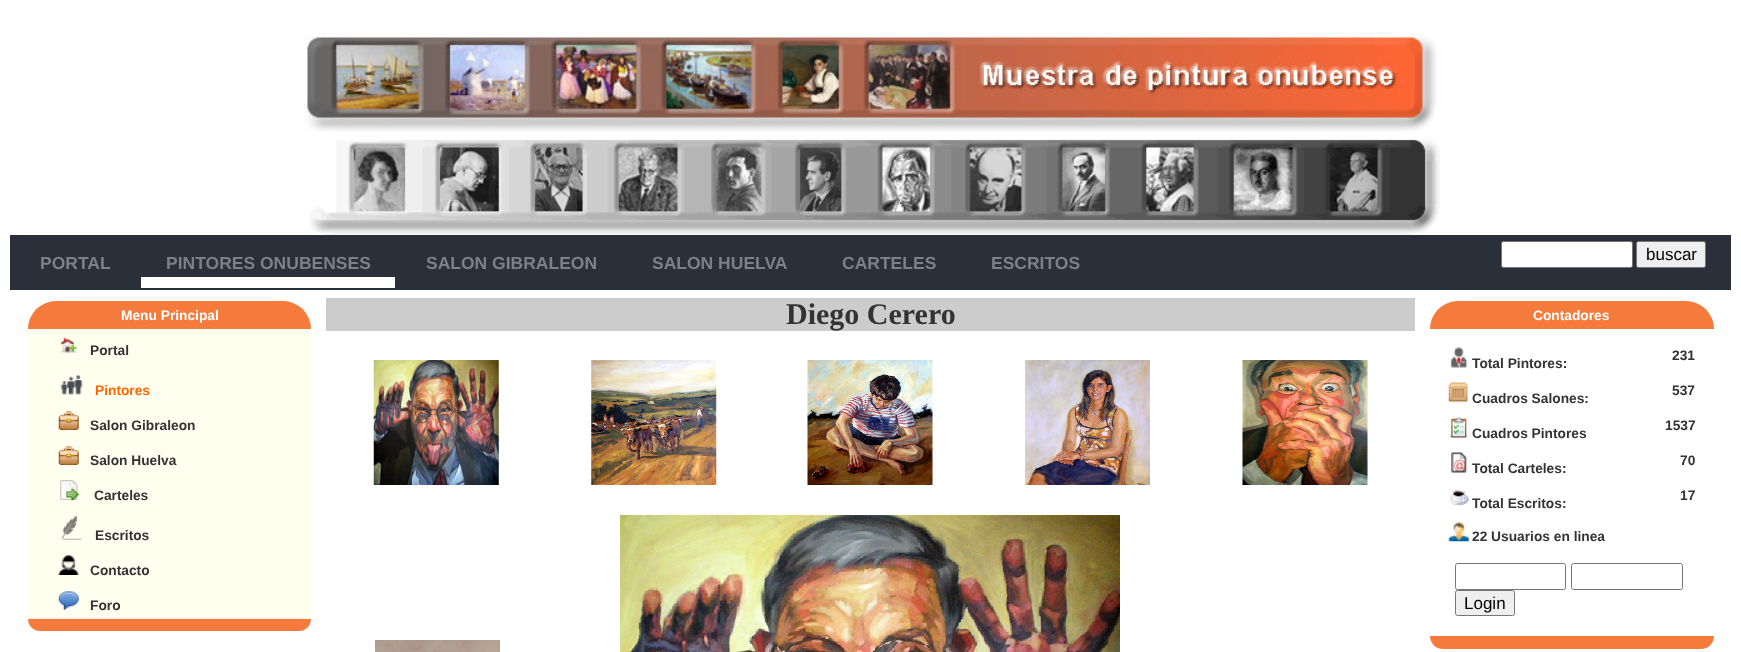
(async () => {
  const canvas = document.querySelector("canvas");
  canvas.width = 1741;
  canvas.height = 652;
  const ctx = canvas.getContext("2d");
  ctx.miterLimit = 4;
  ctx.fontKerning = "normal";
  async function loadImage(src) {
    const img = new Image();
    img.src = src;
    await img.decode();
    return img;
  }

  ctx.fillStyle = "#ffffff";
  ctx.fillRect(0, 0, 1741, 652);
  ctx.drawImage(await loadImage("img/1.png"), 304, 32, 1133, 100);
  ctx.drawImage(await loadImage("img/2.png"), 309, 139, 1131, 96);
  ctx.fillStyle = "#2b2f3a";
  ctx.fillRect(10, 235, 1721, 55);
  ctx.fillStyle = "#ffffff";
  ctx.beginPath();
  ctx.roundRect(1501.5, 241.5, 131, 26, 2);
  ctx.fill();
  ctx.strokeStyle = "#767676";
  ctx.stroke();
  ctx.fillStyle = "#efefef";
  ctx.beginPath();
  ctx.roundRect(1636.5, 241.5, 69, 26, 2);
  ctx.fill();
  ctx.stroke();
  ctx.fillStyle = "#ffffff";
  ctx.fillRect(141, 277, 254, 11);
  ctx.fillStyle = "#f57b3d";
  ctx.beginPath();
  ctx.roundRect(28, 301, 283, 28, [28, 28, 0, 0]);
  ctx.fill();
  ctx.fillStyle = "#fffff0";
  ctx.fillRect(28, 329, 283, 290);
  ctx.drawImage(await loadImage("img/3.png"), 60, 337, 18, 16);
  ctx.drawImage(await loadImage("img/4.png"), 60, 374, 23, 21);
  ctx.drawImage(await loadImage("img/5.png"), 58, 411, 21, 19);
  ctx.drawImage(await loadImage("img/5.png"), 58, 446, 21, 19);
  ctx.drawImage(await loadImage("img/6.png"), 60, 480, 19, 20);
  ctx.drawImage(await loadImage("img/7.png"), 61, 515, 21, 25);
  ctx.drawImage(await loadImage("img/8.png"), 58, 555, 21, 20);
  ctx.drawImage(await loadImage("img/9.png"), 58, 591, 21, 19);
  ctx.fillStyle = "#f57b3d";
  ctx.beginPath();
  ctx.roundRect(28, 619, 283, 12, [0, 0, 12, 12]);
  ctx.fill();
  ctx.fillStyle = "#cccccc";
  ctx.fillRect(326, 298, 1089, 33);
  ctx.drawImage(await loadImage("img/10.png"), 373, 360, 126, 125);
  ctx.drawImage(await loadImage("img/11.png"), 591, 360, 126, 125);
  ctx.drawImage(await loadImage("img/12.png"), 807, 360, 126, 125);
  ctx.drawImage(await loadImage("img/13.png"), 1025, 360, 125, 125);
  ctx.drawImage(await loadImage("img/14.png"), 1242, 360, 126, 125);
  ctx.drawImage(await loadImage("img/15.png"), 375, 640, 125, 12);
  ctx.drawImage(await loadImage("img/16.png"), 620, 515, 500, 137);
  ctx.fillStyle = "#f57b3d";
  ctx.beginPath();
  ctx.roundRect(1430, 301, 284, 28, [28, 28, 0, 0]);
  ctx.fill();
  ctx.drawImage(await loadImage("img/17.png"), 1450, 347, 18, 21);
  ctx.drawImage(await loadImage("img/18.png"), 1448, 382, 20, 21);
  ctx.drawImage(await loadImage("img/19.png"), 1449, 417, 20, 21);
  ctx.drawImage(await loadImage("img/20.png"), 1451, 452, 16, 21);
  ctx.drawImage(await loadImage("img/21.png"), 1449, 489, 20, 17);
  ctx.drawImage(await loadImage("img/22.png"), 1448, 522, 21, 20);
  ctx.beginPath();
  ctx.roundRect(1455.5, 563.5, 110, 26, 2);
  ctx.stroke();
  ctx.beginPath();
  ctx.roundRect(1571.5, 563.5, 111, 26, 2);
  ctx.stroke();
  ctx.fillStyle = "#efefef";
  ctx.beginPath();
  ctx.roundRect(1455.5, 590.5, 59, 25, 2);
  ctx.fill();
  ctx.stroke();
  ctx.fillStyle = "#f57b3d";
  ctx.beginPath();
  ctx.roundRect(1430, 636, 284, 13, [0, 0, 13, 13]);
  ctx.fill();
  ctx.font = "17px Liberation Sans";
  ctx.fillStyle = "#000000";
  ctx.fillText("buscar", 1646, 260);
  ctx.font = "bold 17.5px Liberation Sans";
  ctx.fillStyle = "#7a8189";
  for (const [text, x, y] of [
    ["PORTAL", 40, 269],
    ["PINTORES ONUBENSES", 166, 269],
    ["SALON GIBRALEON", 426, 269],
    ["SALON HUELVA", 652, 269],
    ["CARTELES", 842, 269],
    ["ESCRITOS", 991, 269],
  ]) {
    ctx.fillText(text, x, y);
  }
  ctx.font = "bold 13.75px Liberation Sans";
  ctx.fillStyle = "#ffffff";
  ctx.fillText("Menu Principal", 121, 320);
  ctx.fillStyle = "#333333";
  ctx.fillText("Portal", 90, 355);
  ctx.fillStyle = "#ff6600";
  ctx.fillText("Pintores", 95, 395);
  ctx.fillStyle = "#333333";
  for (const [text, x, y] of [
    ["Salon Gibraleon", 90, 430],
    ["Salon Huelva", 90, 465],
    ["Carteles", 94, 500],
    ["Escritos", 95, 540],
    ["Contacto", 90, 575],
    ["Foro", 90, 610],
  ]) {
    ctx.fillText(text, x, y);
  }
  ctx.font = "bold 30px Liberation Serif";
  ctx.fillText("Diego Cerero", 786, 324);
  ctx.font = "bold 13.75px Liberation Sans";
  ctx.fillStyle = "#ffffff";
  ctx.fillText("Contadores", 1533, 320);
  ctx.fillStyle = "#333333";
  for (const [text, x, y] of [
    ["231", 1672, 360],
    ["Total Pintores:", 1472, 368],
    ["537", 1672, 395],
    ["Cuadros Salones:", 1472, 403],
    ["1537", 1665, 430],
    ["Cuadros Pintores", 1472, 438],
    ["70", 1680, 465],
    ["Total Carteles:", 1472, 473],
    ["17", 1680, 500],
    ["Total Escritos:", 1472, 508],
    ["22 Usuarios en linea", 1472, 541],
  ]) {
    ctx.fillText(text, x, y);
  }
  ctx.font = "17px Liberation Sans";
  ctx.fillStyle = "#000000";
  ctx.fillText("Login", 1464, 609);
})();
